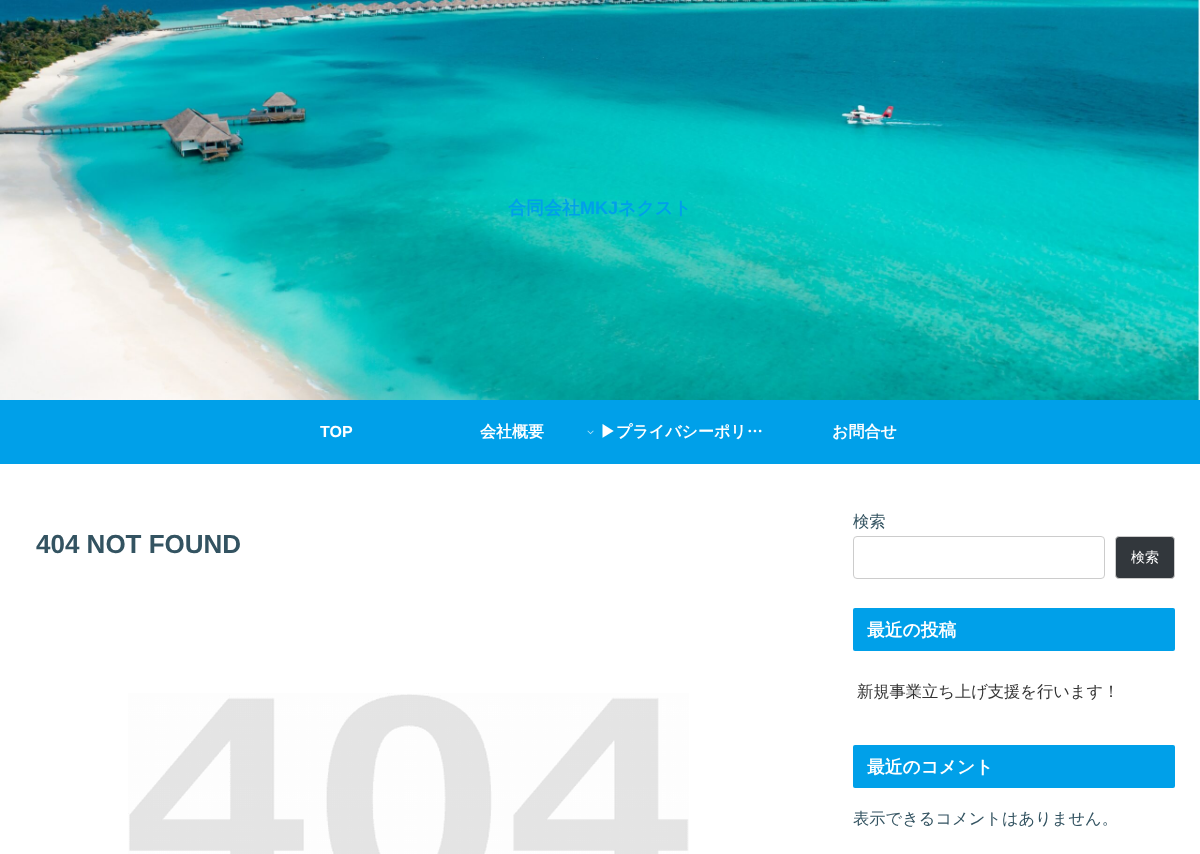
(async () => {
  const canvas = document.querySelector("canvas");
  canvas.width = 1200;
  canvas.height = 854;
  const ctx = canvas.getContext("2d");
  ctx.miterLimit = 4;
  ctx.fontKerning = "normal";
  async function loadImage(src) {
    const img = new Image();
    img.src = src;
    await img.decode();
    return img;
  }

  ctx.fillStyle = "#ffffff";
  ctx.fillRect(0, 0, 1200, 854);
  ctx.drawImage(await loadImage("img/1.png"), 0, 0, 1200, 400);
  ctx.fillStyle = "#00a0e9";
  ctx.fillRect(0, 400, 1200, 64);
  ctx.drawImage(await loadImage("img/2.png"), 587, 430, 7, 5);
  ctx.drawImage(await loadImage("img/3.png"), 128, 693, 561, 161);
  ctx.beginPath();
  ctx.roundRect(853.5, 536.5, 251, 42, 3.5);
  ctx.strokeStyle = "#cccccc";
  ctx.stroke();
  ctx.fillStyle = "#32373c";
  ctx.beginPath();
  ctx.roundRect(1115.5, 536.5, 59, 42, 3.5);
  ctx.fill();
  ctx.stroke();
  ctx.fillStyle = "#00a0e9";
  ctx.beginPath();
  ctx.roundRect(853, 608, 322, 43, 2);
  ctx.fill();
  ctx.beginPath();
  ctx.roundRect(853, 745, 322, 43, 2);
  ctx.fill();
  ctx.font = "bold 18px WenQuanYi Zen Hei";
  ctx.fillText("合同会社", 508, 214);
  ctx.font = "bold 18px Liberation Sans";
  ctx.fillText("MKJ", 580, 214);
  ctx.font = "bold 18px WenQuanYi Zen Hei";
  ctx.fillText("ネクスト", 618, 214);
  ctx.font = "bold 16px Liberation Sans";
  ctx.fillStyle = "#ffffff";
  ctx.fillText("TOP", 320, 437);
  ctx.font = "bold 16px WenQuanYi Zen Hei";
  for (const [text, x, y] of [
    ["会社概要", 480, 437],
    ["▶プライバシーポリ…", 600, 437],
    ["お問合せ", 832, 437],
  ]) {
    ctx.fillText(text, x, y);
  }
  ctx.font = "bold 26px Liberation Sans";
  ctx.fillStyle = "#335361";
  ctx.fillText("404 NOT FOUND", 36, 553);
  ctx.font = "500 16.25px WenQuanYi Zen Hei";
  ctx.fillText("検索", 853, 527);
  ctx.font = "500 14px WenQuanYi Zen Hei";
  ctx.fillStyle = "#ffffff";
  ctx.fillText("検索", 1131, 562);
  ctx.font = "bold 17.75px WenQuanYi Zen Hei";
  ctx.fillText("最近の投稿", 867, 636);
  ctx.font = "500 16.25px WenQuanYi Zen Hei";
  ctx.fillStyle = "#333333";
  ctx.fillText("新規事業立ち上げ支援を行います！", 857, 697);
  ctx.font = "bold 17.75px WenQuanYi Zen Hei";
  ctx.fillStyle = "#ffffff";
  ctx.fillText("最近のコメント", 867, 773);
  ctx.font = "500 16.25px WenQuanYi Zen Hei";
  ctx.fillStyle = "#335361";
  ctx.fillText("表示できるコメントはありません。", 853, 824);
})();
